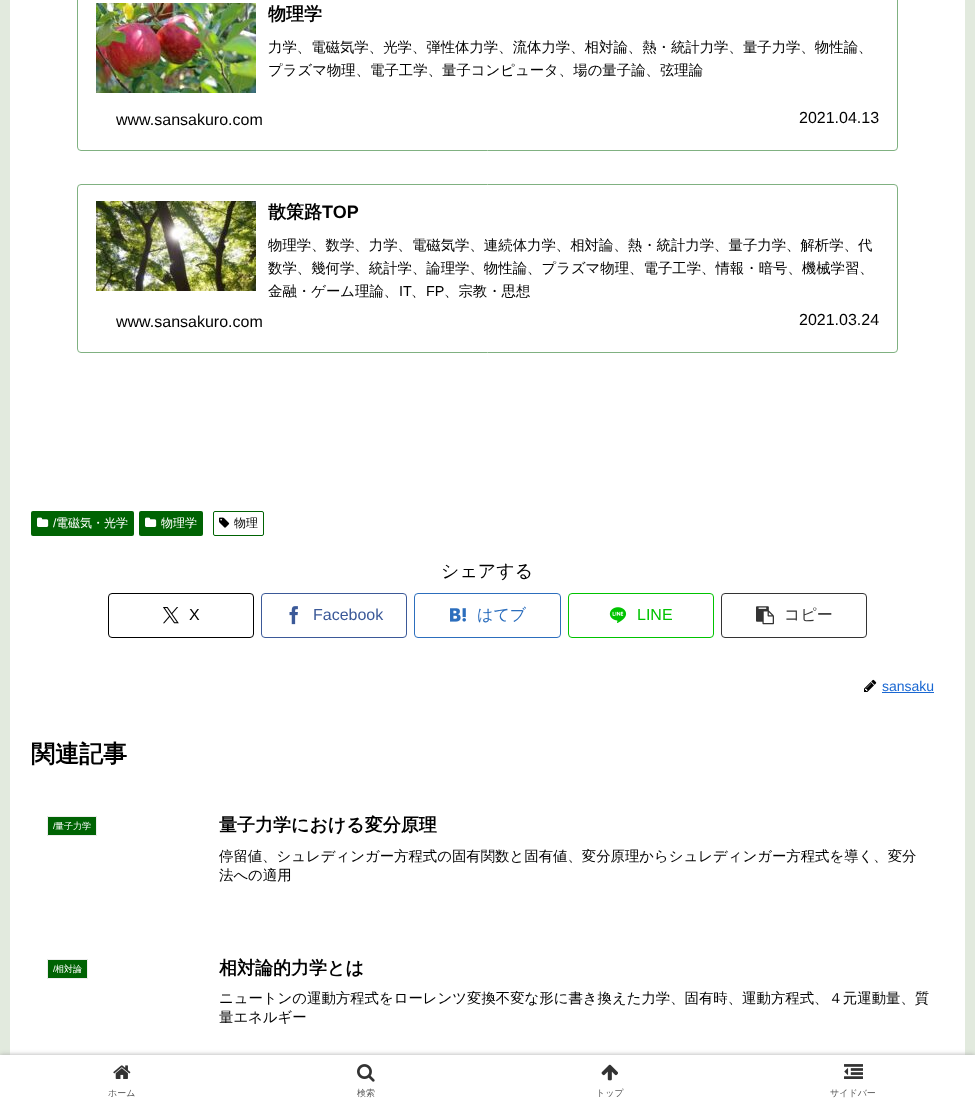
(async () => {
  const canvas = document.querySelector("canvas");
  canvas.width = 975;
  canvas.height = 1105;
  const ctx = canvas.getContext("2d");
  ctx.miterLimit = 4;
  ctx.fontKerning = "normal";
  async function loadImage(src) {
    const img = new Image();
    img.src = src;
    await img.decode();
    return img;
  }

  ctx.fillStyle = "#e2eade";
  ctx.fillRect(0, 0, 975, 1105);
  ctx.fillStyle = "#ffffff";
  ctx.fillRect(10, 0, 955, 1055);
  ctx.beginPath();
  ctx.roundRect(77.5, -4.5, 820, 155, 3.5);
  ctx.strokeStyle = "#80b181";
  ctx.stroke();
  ctx.drawImage(await loadImage("img/1.png"), 96, 3, 160, 90);
  ctx.beginPath();
  ctx.roundRect(77.5, 184.5, 820, 168, 3.5);
  ctx.stroke();
  ctx.drawImage(await loadImage("img/2.png"), 96, 201, 160, 90);
  ctx.fillStyle = "#006303";
  ctx.beginPath();
  ctx.roundRect(31, 511, 103, 25, 2);
  ctx.fill();
  ctx.drawImage(await loadImage("img/3.png"), 37, 517, 12, 10);
  ctx.beginPath();
  ctx.roundRect(139, 511, 64, 25, 2);
  ctx.fill();
  ctx.drawImage(await loadImage("img/3.png"), 145, 517, 12, 10);
  ctx.beginPath();
  ctx.roundRect(213.5, 511.5, 50, 24, 1.5);
  ctx.strokeStyle = "#006303";
  ctx.stroke();
  ctx.drawImage(await loadImage("img/4.png"), 219, 517, 11, 11);
  ctx.beginPath();
  ctx.roundRect(108.5, 593.5, 145, 44, 3.5);
  ctx.strokeStyle = "#000000";
  ctx.stroke();
  ctx.drawImage(await loadImage("img/5.png"), 163, 607, 16, 17);
  ctx.beginPath();
  ctx.roundRect(261.5, 593.5, 145, 44, 3.5);
  ctx.strokeStyle = "#3b5998";
  ctx.stroke();
  ctx.drawImage(await loadImage("img/6.png"), 289, 606, 9, 19);
  ctx.beginPath();
  ctx.roundRect(414.5, 593.5, 146, 44, 3.5);
  ctx.strokeStyle = "#2c6ebd";
  ctx.stroke();
  ctx.drawImage(await loadImage("img/7.png"), 450, 608, 16, 14);
  ctx.beginPath();
  ctx.roundRect(568.5, 593.5, 145, 44, 3.5);
  ctx.strokeStyle = "#00c300";
  ctx.stroke();
  ctx.drawImage(await loadImage("img/8.png"), 609, 607, 18, 16);
  ctx.beginPath();
  ctx.roundRect(721.5, 593.5, 145, 44, 3.5);
  ctx.strokeStyle = "#333333";
  ctx.stroke();
  ctx.drawImage(await loadImage("img/9.png"), 756, 606, 18, 19);
  ctx.drawImage(await loadImage("img/10.png"), 864, 679, 13, 13);
  ctx.fillStyle = "#1967d2";
  ctx.fillRect(882, 692, 52, 1);
  ctx.fillStyle = "#006303";
  ctx.beginPath();
  ctx.rect(47.5, 816.5, 49, 19);
  ctx.fill();
  ctx.strokeStyle = "#eeeeee";
  ctx.stroke();
  ctx.beginPath();
  ctx.rect(47.5, 959.5, 40, 19);
  ctx.fill();
  ctx.stroke();
  ctx.fillStyle = "#a9a9a9";
  ctx.filter = "blur(2.5px)";
  ctx.beginPath();
  ctx.rect(0, 1055, 975, 50);
  ctx.fill();
  ctx.filter = "none";
  ctx.fillStyle = "#ffffff";
  ctx.fillRect(0, 1055, 975, 50);
  ctx.drawImage(await loadImage("img/11.png"), 113, 1065, 18, 14);
  ctx.drawImage(await loadImage("img/12.png"), 357, 1064, 18, 18);
  ctx.drawImage(await loadImage("img/13.png"), 601, 1064, 17, 17);
  ctx.drawImage(await loadImage("img/14.png"), 844, 1064, 19, 15);
  ctx.font = "bold 18px WenQuanYi Zen Hei";
  ctx.fillStyle = "#000000";
  ctx.fillText("物理学", 268, 20);
  ctx.font = "500 14.4px WenQuanYi Zen Hei";
  ctx.fillText("力学、電磁気学、光学、弾性体力学、流体力学、相対論、熱・統計力学、量子力学、物性論、", 268, 52);
  ctx.fillText("プラズマ物理、電子工学、量子コンピュータ、場の量子論、弦理論", 268, 75);
  ctx.font = "16px Liberation Sans";
  ctx.fillText("www.sansakuro.com", 116, 125);
  ctx.fillText("2021.04.13", 799, 123);
  ctx.font = "bold 18px WenQuanYi Zen Hei";
  ctx.fillText("散策路", 268, 218);
  ctx.font = "bold 18px Liberation Sans";
  ctx.fillText("TOP", 322, 218);
  ctx.font = "500 14.4px WenQuanYi Zen Hei";
  for (const [text, x, y] of [
    ["物理学、数学、力学、電磁気学、連続体力学、相対論、熱・統計力学、量子力学、解析学、代", 268, 250],
    ["数学、幾何学、統計学、論理学、物性論、プラズマ物理、電子工学、情報・暗号、機械学習、", 268, 273],
    ["金融・ゲーム理論、", 268, 296],
  ]) {
    ctx.fillText(text, x, y);
  }
  ctx.font = "14.4px Liberation Sans";
  ctx.fillText("IT", 399, 296);
  ctx.font = "500 14.4px WenQuanYi Zen Hei";
  ctx.fillText("、", 411, 296);
  ctx.font = "14.4px Liberation Sans";
  ctx.fillText("FP", 426, 296);
  ctx.font = "500 14.4px WenQuanYi Zen Hei";
  ctx.fillText("、宗教・思想", 444, 296);
  ctx.font = "16px Liberation Sans";
  ctx.fillText("www.sansakuro.com", 116, 327);
  ctx.fillText("2021.03.24", 799, 325);
  ctx.font = "12px Liberation Sans";
  ctx.fillStyle = "#ffffff";
  ctx.fillText("/", 53, 527);
  ctx.font = "500 12px WenQuanYi Zen Hei";
  ctx.fillText("電磁気・光学", 56, 527);
  ctx.fillText("物理学", 161, 527);
  ctx.fillStyle = "#000000";
  ctx.fillText("物理", 234, 527);
  ctx.font = "500 18px WenQuanYi Zen Hei";
  ctx.fillText("シェアする", 441, 577);
  ctx.font = "16px Liberation Sans";
  ctx.fillText("X", 189, 620);
  ctx.fillStyle = "#3b5998";
  ctx.fillText("Facebook", 313, 620);
  ctx.font = "500 16px WenQuanYi Zen Hei";
  ctx.fillStyle = "#2c6ebd";
  ctx.fillText("はてブ", 477, 620);
  ctx.font = "16px Liberation Sans";
  ctx.fillStyle = "#00c300";
  ctx.fillText("LINE", 637, 620);
  ctx.font = "500 16px WenQuanYi Zen Hei";
  ctx.fillStyle = "#333333";
  ctx.fillText("コピー", 784, 620);
  ctx.font = "14px Liberation Sans";
  ctx.fillStyle = "#1967d2";
  ctx.fillText("sansaku", 882, 691);
  ctx.font = "bold 24px WenQuanYi Zen Hei";
  ctx.fillStyle = "#000000";
  ctx.fillText("関連記事", 31, 762);
  ctx.font = "9px Liberation Sans";
  ctx.fillStyle = "#ffffff";
  ctx.fillText("/", 53, 829);
  ctx.font = "500 9px WenQuanYi Zen Hei";
  ctx.fillText("量子力学", 55, 829);
  ctx.font = "bold 18px WenQuanYi Zen Hei";
  ctx.fillStyle = "#000000";
  ctx.fillText("量子力学における変分原理", 219, 831);
  ctx.font = "500 14.4px WenQuanYi Zen Hei";
  ctx.fillText("停留値、シュレディンガー方程式の固有関数と固有値、変分原理からシュレディンガー方程式を導く、変分", 219, 861);
  ctx.fillText("法への適用", 219, 880);
  ctx.font = "9px Liberation Sans";
  ctx.fillStyle = "#ffffff";
  ctx.fillText("/", 53, 972);
  ctx.font = "500 9px WenQuanYi Zen Hei";
  ctx.fillText("相対論", 55, 972);
  ctx.font = "bold 18px WenQuanYi Zen Hei";
  ctx.fillStyle = "#000000";
  ctx.fillText("相対論的力学とは", 219, 974);
  ctx.font = "500 14.4px WenQuanYi Zen Hei";
  ctx.fillText("ニュートンの運動方程式をローレンツ変換不変な形に書き換えた力学、固有時、運動方程式、４元運動量、質", 219, 1003);
  ctx.fillText("量エネルギー", 219, 1022);
  ctx.font = "500 9px WenQuanYi Zen Hei";
  ctx.fillStyle = "#5c5c5c";
  for (const [text, x, y] of [
    ["ホーム", 108, 1096],
    ["検索", 357, 1096],
    ["トップ", 596, 1096],
    ["サイドバー", 830, 1096],
  ]) {
    ctx.fillText(text, x, y);
  }
})();
